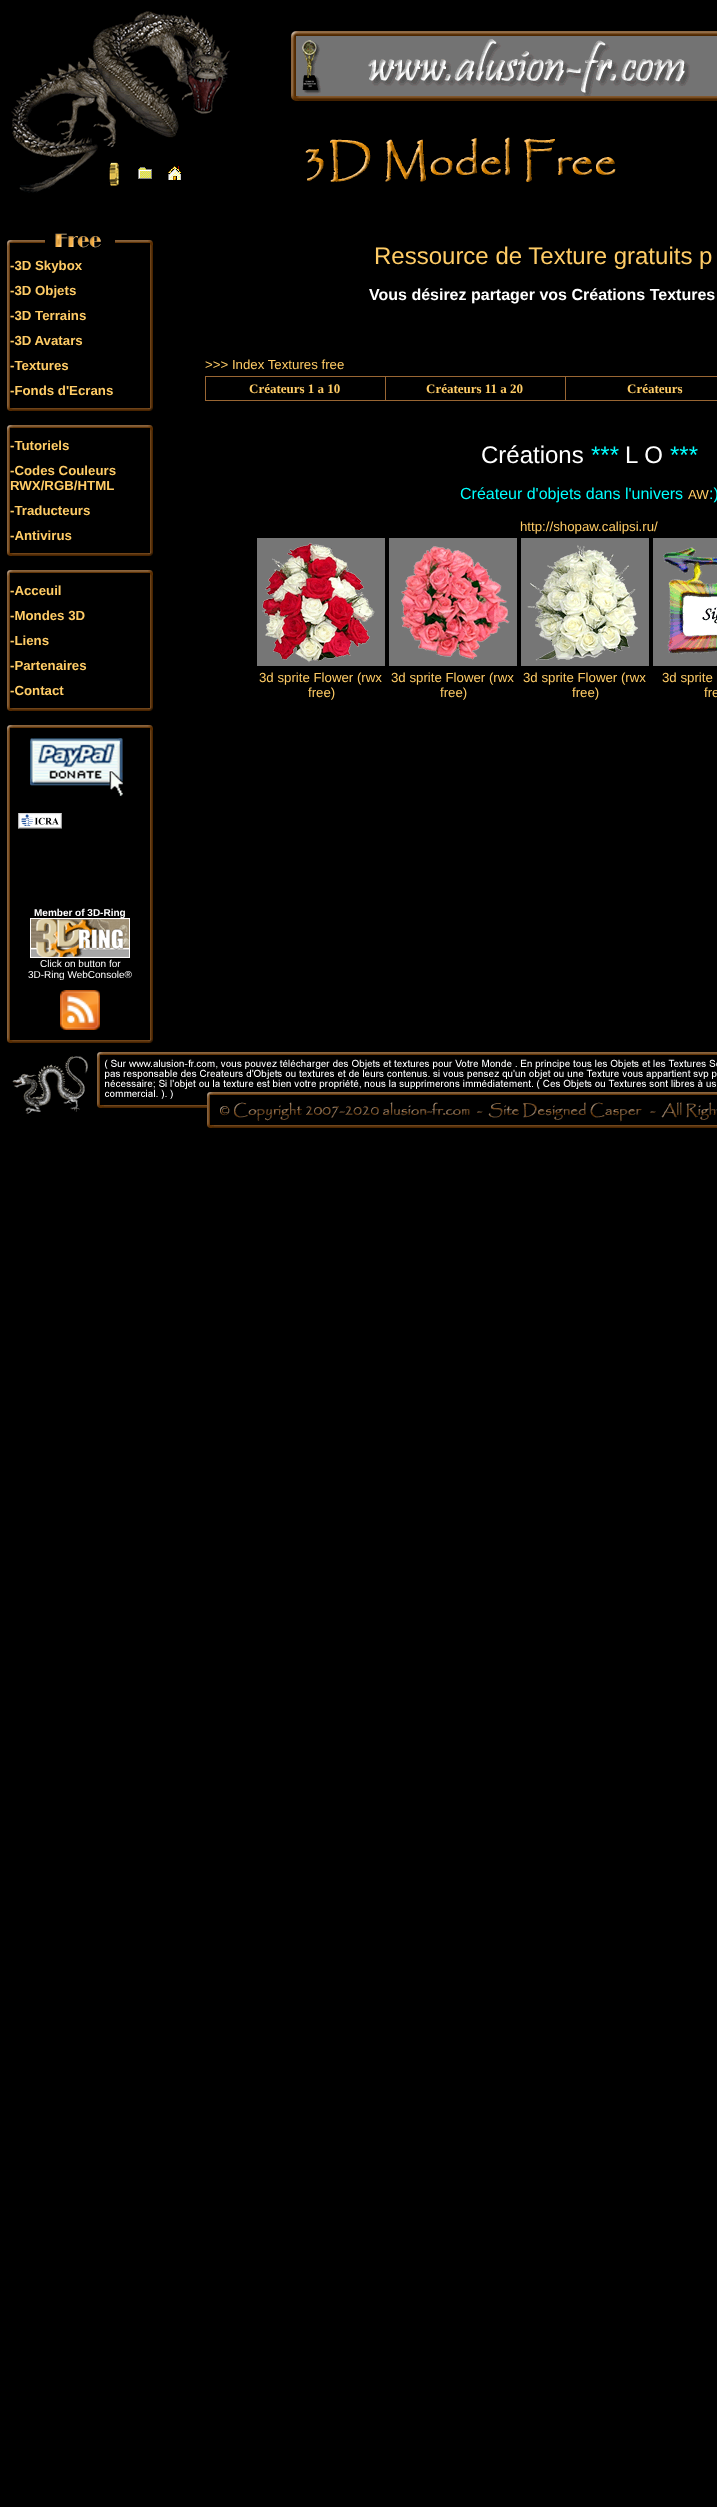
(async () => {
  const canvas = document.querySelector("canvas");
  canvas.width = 717;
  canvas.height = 2507;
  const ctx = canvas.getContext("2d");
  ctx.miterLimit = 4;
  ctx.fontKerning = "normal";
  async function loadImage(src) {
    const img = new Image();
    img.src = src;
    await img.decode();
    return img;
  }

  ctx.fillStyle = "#000000";
  ctx.fillRect(0, 0, 717, 2507);
  ctx.drawImage(await loadImage("img/1.png"), 11, 11, 179, 149);
  ctx.drawImage(await loadImage("img/2.png"), 19, 160, 68, 28);
  ctx.drawImage(await loadImage("img/3.png"), 109, 162, 12, 24);
  ctx.drawImage(await loadImage("img/4.png"), 138, 167, 14, 12);
  ctx.drawImage(await loadImage("img/5.png"), 168, 166, 13, 14);
  ctx.drawImage(await loadImage("img/6.png"), 19, 188, 31, 5);
  ctx.drawImage(await loadImage("img/7.png"), 190, 18, 106, 96);
  ctx.drawImage(await loadImage("img/8.png"), 296, 31, 421, 4);
  ctx.drawImage(await loadImage("img/9.png"), 296, 35, 421, 60);
  ctx.drawImage(await loadImage("img/10.png"), 296, 95, 421, 6);
  ctx.drawImage(await loadImage("img/11.png"), 305, 137, 311, 45);
  ctx.drawImage(await loadImage("img/12.png"), 7, 233, 146, 20);
  ctx.drawImage(await loadImage("img/13.png"), 7, 253, 146, 25);
  ctx.drawImage(await loadImage("img/13.png"), 7, 278, 146, 25);
  ctx.drawImage(await loadImage("img/13.png"), 7, 303, 146, 25);
  ctx.drawImage(await loadImage("img/13.png"), 7, 328, 146, 25);
  ctx.drawImage(await loadImage("img/13.png"), 7, 353, 146, 25);
  ctx.drawImage(await loadImage("img/13.png"), 7, 378, 146, 25);
  ctx.drawImage(await loadImage("img/14.png"), 7, 403, 146, 8);
  ctx.drawImage(await loadImage("img/15.png"), 7, 425, 146, 8);
  ctx.drawImage(await loadImage("img/13.png"), 7, 433, 146, 25);
  ctx.drawImage(await loadImage("img/16.png"), 7, 458, 146, 40);
  ctx.drawImage(await loadImage("img/13.png"), 7, 498, 146, 25);
  ctx.drawImage(await loadImage("img/13.png"), 7, 523, 146, 25);
  ctx.drawImage(await loadImage("img/14.png"), 7, 548, 146, 8);
  ctx.drawImage(await loadImage("img/15.png"), 7, 570, 146, 8);
  ctx.drawImage(await loadImage("img/13.png"), 7, 578, 146, 25);
  ctx.drawImage(await loadImage("img/13.png"), 7, 603, 146, 25);
  ctx.drawImage(await loadImage("img/13.png"), 7, 628, 146, 25);
  ctx.drawImage(await loadImage("img/13.png"), 7, 653, 146, 25);
  ctx.drawImage(await loadImage("img/13.png"), 7, 678, 146, 25);
  ctx.drawImage(await loadImage("img/14.png"), 7, 703, 146, 8);
  ctx.drawImage(await loadImage("img/15.png"), 7, 725, 146, 8);
  ctx.drawImage(await loadImage("img/17.png"), 7, 733, 146, 75);
  ctx.drawImage(await loadImage("img/18.png"), 30, 738, 93, 59);
  ctx.drawImage(await loadImage("img/19.png"), 7, 808, 146, 29);
  ctx.drawImage(await loadImage("img/20.png"), 18, 813, 44, 16);
  ctx.drawImage(await loadImage("img/13.png"), 7, 837, 146, 25);
  ctx.drawImage(await loadImage("img/16.png"), 7, 862, 146, 40);
  ctx.drawImage(await loadImage("img/21.png"), 7, 902, 146, 83);
  ctx.drawImage(await loadImage("img/23.png"), 7, 985, 146, 50);
  ctx.drawImage(await loadImage("img/24.png"), 60, 990, 40, 40);
  ctx.drawImage(await loadImage("img/14.png"), 7, 1035, 146, 8);
  for (const [x, y, w, h, color] of [
    [205, 376, 512, 25, "#996633"],
    [206, 377, 179, 23, "#000000"],
    [386, 377, 179, 23, "#000000"],
    [566, 377, 151, 23, "#000000"],
  ]) {
    ctx.fillStyle = color;
    ctx.fillRect(x, y, w, h);
  }
  ctx.drawImage(await loadImage("img/25.png"), 257, 538, 128, 128);
  ctx.drawImage(await loadImage("img/26.png"), 389, 538, 128, 128);
  ctx.drawImage(await loadImage("img/27.png"), 521, 538, 128, 128);
  ctx.drawImage(await loadImage("img/28.png"), 653, 538, 64, 128);
  ctx.drawImage(await loadImage("img/29.png"), 12, 1052, 705, 76);
  ctx.font = "bold 13.25px Liberation Sans";
  ctx.fillStyle = "#ffcc66";
  for (const [text, x, y] of [
    ["-3D Skybox", 10, 270],
    ["-3D Objets", 10, 295],
    ["-3D Terrains", 10, 320],
    ["-3D Avatars", 10, 345],
    ["-Textures", 10, 370],
    ["-Fonds d'Ecrans", 10, 395],
    ["-Tutoriels", 10, 450],
    ["-Codes Couleurs", 10, 475],
    ["RWX/RGB/HTML", 10, 490],
    ["-Traducteurs", 10, 515],
    ["-Antivirus", 10, 540],
    ["-Acceuil", 10, 595],
    ["-Mondes 3D", 10, 620],
    ["-Liens", 10, 645],
    ["-Partenaires", 10, 670],
    ["-Contact", 10, 695],
  ]) {
    ctx.fillText(text, x, y);
  }
  ctx.font = "bold 10px Liberation Sans";
  ctx.fillStyle = "#ffffff";
  ctx.fillText("Member of 3D-Ring", 34, 916);
  ctx.drawImage(await loadImage("img/22.png"), 30, 918, 100, 40);
  ctx.font = "10px Liberation Sans";
  ctx.fillText("Click on button for", 40, 967);
  ctx.fillText("3D-Ring WebConsole®", 28, 978);
  ctx.font = "24px Liberation Sans";
  ctx.fillStyle = "#ffcc66";
  ctx.fillText("Ressource de Texture gratuits p", 374, 264);
  ctx.font = "bold 16px Liberation Sans";
  ctx.fillStyle = "#ffffff";
  ctx.fillText("Vous désirez partager vos Créations Textures", 369, 300);
  ctx.font = "13.25px Liberation Sans";
  ctx.fillStyle = "#ffcc66";
  ctx.fillText(">>> Index Textures free", 205, 369);
  ctx.font = "bold 13px Liberation Serif";
  for (const [text, x, y] of [
    ["Créateurs 1 a 10", 249, 393],
    ["Créateurs 11 a 20", 426, 393],
    ["Créateurs", 627, 393],
  ]) {
    ctx.fillText(text, x, y);
  }
  ctx.font = "24px Liberation Sans";
  ctx.fillStyle = "#ffffff";
  ctx.fillText("Créations", 481, 463);
  ctx.fillStyle = "#00ffff";
  ctx.fillText("***", 591, 463);
  ctx.fillStyle = "#ffffff";
  ctx.fillText("L O", 625, 463);
  ctx.fillStyle = "#00ffff";
  ctx.fillText("***", 670, 463);
  ctx.font = "16px Liberation Sans";
  ctx.fillText("Créateur d'objets dans l'univers", 460, 499);
  ctx.font = "13.25px Liberation Sans";
  ctx.fillStyle = "#ffcc66";
  ctx.fillText("AW", 688, 499);
  ctx.font = "16px Liberation Sans";
  ctx.fillStyle = "#00ffff";
  ctx.fillText(":)", 709, 499);
  ctx.font = "13.25px Liberation Sans";
  ctx.fillStyle = "#ffcc66";
  for (const [text, x, y] of [
    ["http://shopaw.calipsi.ru/", 520, 531],
    ["3d sprite Flower (rwx", 259, 682],
    ["free)", 308, 697],
    ["3d sprite Flower (rwx", 391, 682],
    ["free)", 440, 697],
    ["3d sprite Flower (rwx", 523, 682],
    ["free)", 572, 697],
    ["3d sprite", 662, 682],
    ["fre", 704, 697],
  ]) {
    ctx.fillText(text, x, y);
  }
})();
